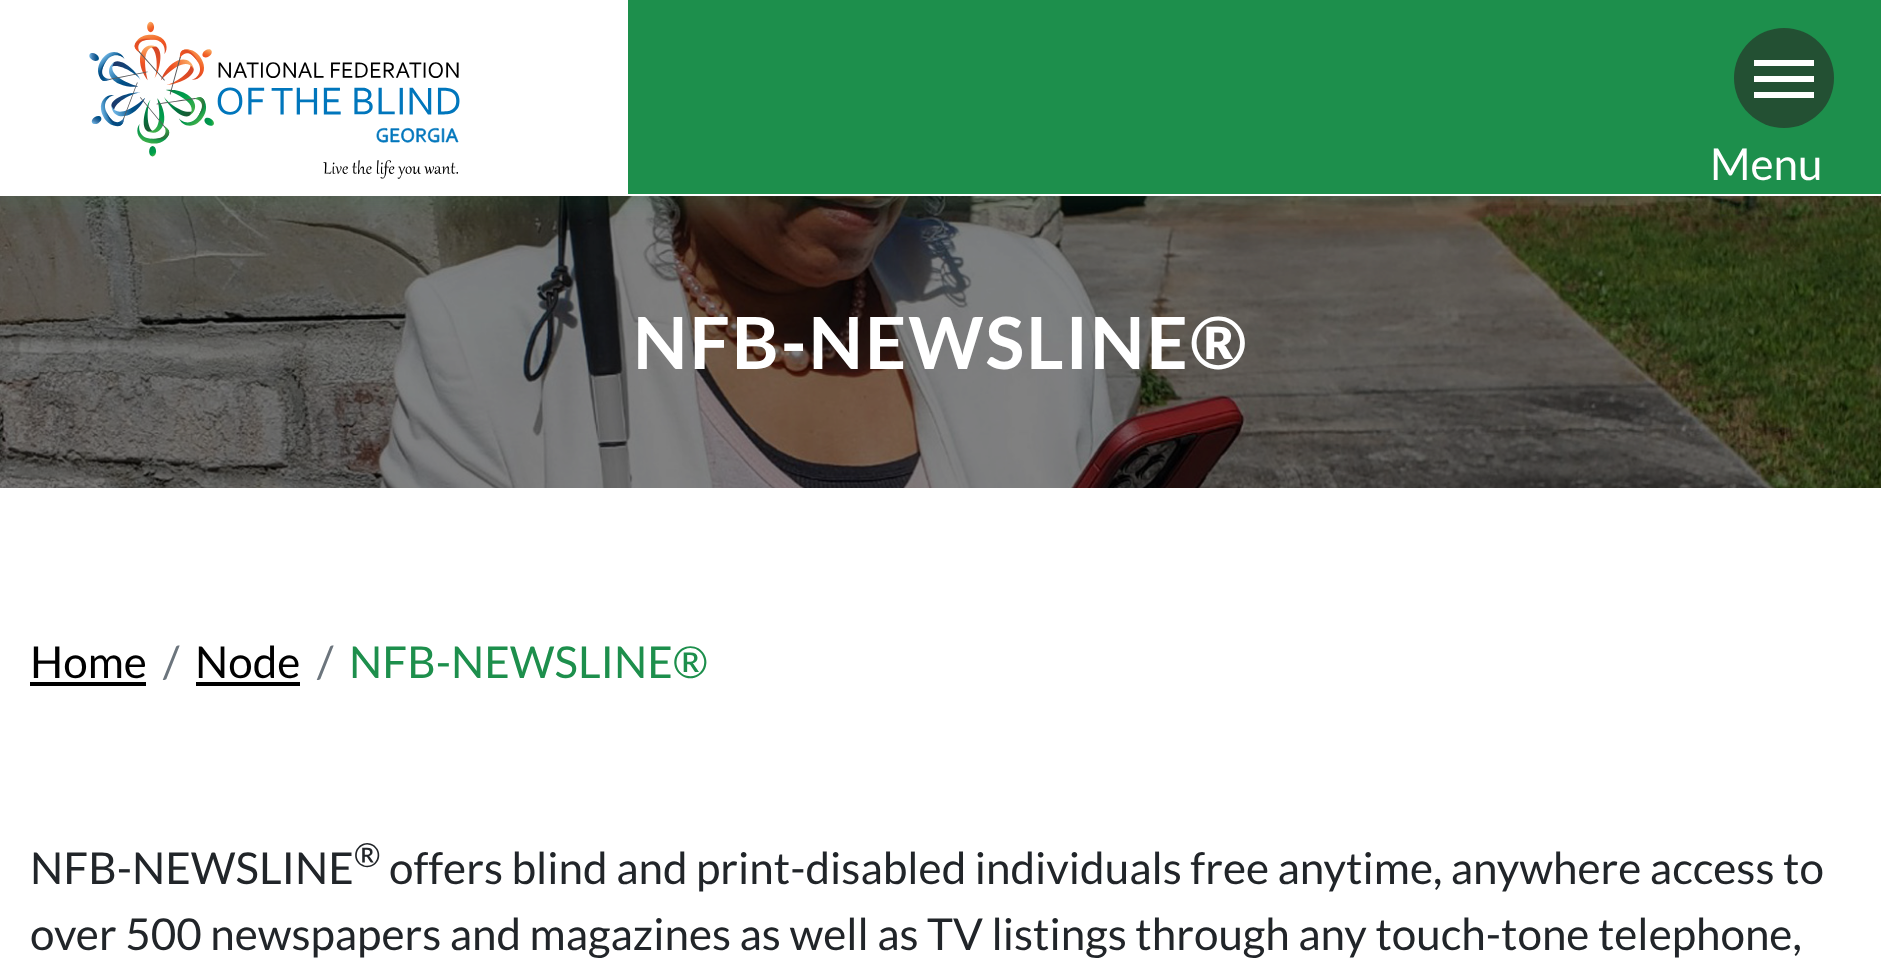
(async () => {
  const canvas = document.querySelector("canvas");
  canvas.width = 1881;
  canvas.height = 972;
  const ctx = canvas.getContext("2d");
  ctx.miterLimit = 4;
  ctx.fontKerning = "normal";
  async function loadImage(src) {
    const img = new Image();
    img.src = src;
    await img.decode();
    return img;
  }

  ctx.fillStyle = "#ffffff";
  ctx.fillRect(0, 0, 1881, 972);
  ctx.drawImage(await loadImage("img/2.png"), 0, 196, 1881, 292);
  ctx.fillStyle = "rgba(29, 143, 76, 0.12)";
  ctx.filter = "blur(10px)";
  ctx.beginPath();
  ctx.rect(0, 10, 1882, 196);
  ctx.fill();
  ctx.filter = "none";
  ctx.fillStyle = "#ffffff";
  ctx.fillRect(0, 0, 1881, 196);
  ctx.drawImage(await loadImage("img/1.png"), 89, 21, 371, 158);
  ctx.fillStyle = "#1d8f4c";
  ctx.fillRect(628, 0, 1253, 194);
  ctx.fillStyle = "#235033";
  ctx.beginPath();
  ctx.arc(1784, 78, 50, 0, Math.PI * 2);
  ctx.fill();
  for (const [x, y, w, h, color] of [
    [1754, 60, 60, 6, "#ffffff"],
    [1754, 76, 60, 6, "#ffffff"],
    [1754, 92, 60, 6, "#ffffff"],
    [30, 682, 116, 4, "#000000"],
    [196, 682, 104, 4, "#000000"],
  ]) {
    ctx.fillStyle = color;
    ctx.fillRect(x, y, w, h);
  }
  ctx.font = "44px Lato";
  ctx.fillStyle = "#ffffff";
  ctx.fillText("Menu", 1710, 180);
  ctx.letterSpacing = "2px";
  ctx.font = "bold 72px Lato";
  ctx.fillText("NFB-NEWSLINE®", 633, 369);
  ctx.letterSpacing = "0px";
  ctx.font = "44px Lato";
  ctx.fillStyle = "#000000";
  ctx.fillText("Home", 30, 678);
  ctx.fillStyle = "#6c757d";
  ctx.fillText("/", 163, 678);
  ctx.fillStyle = "#000000";
  ctx.fillText("Node", 195, 678);
  ctx.fillStyle = "#6c757d";
  ctx.fillText("/", 317, 678);
  ctx.fillStyle = "#1d8f4c";
  ctx.fillText("NFB-NEWSLINE®", 349, 678);
  ctx.fillStyle = "#212529";
  ctx.fillText("NFB-NEWSLINE", 30, 884);
  ctx.font = "33px Lato";
  ctx.fillText("®", 354, 867);
  ctx.font = "44px Lato";
  ctx.fillText("offers blind and print-disabled individuals free anytime, anywhere access to", 389, 884);
  ctx.fillText("over 500 newspapers and magazines as well as TV listings through any touch-tone telephone,", 30, 950);
})();
